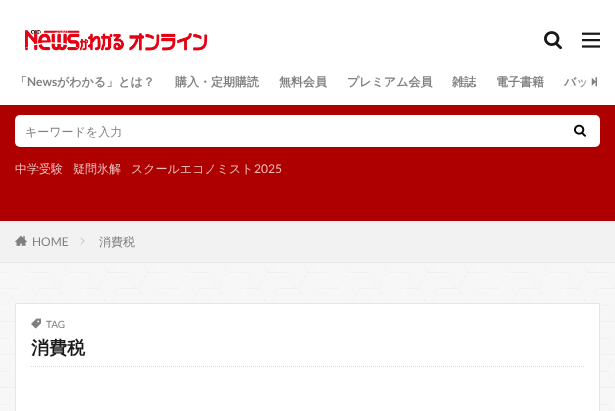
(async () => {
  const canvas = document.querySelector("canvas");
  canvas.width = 615;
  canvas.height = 411;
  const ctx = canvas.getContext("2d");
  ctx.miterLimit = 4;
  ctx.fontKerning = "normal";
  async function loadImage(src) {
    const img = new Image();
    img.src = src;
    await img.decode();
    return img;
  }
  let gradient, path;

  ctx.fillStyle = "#ffffff";
  ctx.fillRect(0, 0, 615, 411);
  ctx.drawImage(await loadImage("img/1.png"), 0, 263, 615, 148);
  ctx.drawImage(await loadImage("img/2.png"), 25, 30, 183, 21);
  ctx.drawImage(await loadImage("img/3.png"), 544, 31, 18, 19);
  ctx.drawImage(await loadImage("img/4.png"), 582, 32, 18, 16);
  ctx.drawImage(await loadImage("img/5.png"), 591, 77, 6, 10);
  ctx.fillStyle = "#af0000";
  ctx.fillRect(0, 105, 615, 116);
  ctx.fillStyle = "#ffffff";
  ctx.beginPath();
  ctx.roundRect(15, 115, 545, 32, [5, 0, 0, 5]);
  ctx.fill();
  ctx.beginPath();
  ctx.roundRect(560, 115, 40, 32, [0, 5, 5, 0]);
  ctx.fill();
  ctx.drawImage(await loadImage("img/6.png"), 574, 124, 12, 13);
  ctx.fillStyle = "#f2f2f2";
  ctx.fillRect(0, 221, 615, 41);
  ctx.fillStyle = "#e6e6e6";
  ctx.fillRect(0, 262, 615, 1);
  ctx.drawImage(await loadImage("img/7.png"), 15, 235, 12, 11);
  ctx.fillStyle = "#bfbfbf";
  path = new Path2D("M81 237.5L84.5 241L84 241.5L80.5 238Z");
  ctx.fill(path);
  path = new Path2D("M84 240.5L84.5 241L81 244.5L80.5 244Z");
  ctx.fill(path);
  ctx.fillStyle = "#ffffff";
  ctx.beginPath();
  ctx.rect(15.5, 303.5, 584, 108);
  ctx.fill();
  ctx.strokeStyle = "#e6e6e6";
  ctx.stroke();
  ctx.drawImage(await loadImage("img/8.png"), 31, 318, 10, 11);
  path = new Path2D("M31 366.5H584");
  ctx.strokeStyle = "#d8d8d8";
  ctx.setLineDash([1, 1]);
  ctx.stroke(path);
  ctx.font = "bold 12px WenQuanYi Zen Hei";
  ctx.fillStyle = "#7f7f7f";
  ctx.fillText("「", 15, 86);
  ctx.font = "bold 12px Lato";
  ctx.fillText("News", 27, 86);
  ctx.font = "bold 12px WenQuanYi Zen Hei";
  for (const [text, x, y] of [
    ["がわかる」とは？", 57, 86],
    ["購入・定期購読", 175, 86],
    ["無料会員", 279, 86],
    ["プレミアム会員", 347, 86],
    ["雑誌", 452, 86],
    ["電子書籍", 496, 86],
    ["バッ", 564, 86],
  ]) {
    ctx.fillText(text, x, y);
  }
  gradient = ctx.createLinearGradient(575, 70, 600, 70);
  gradient.addColorStop(0, "rgba(255, 255, 255, 0)");
  gradient.addColorStop(1, "#ffffff");
  ctx.fillStyle = gradient;
  ctx.fillRect(576, 78, 11, 10);
  ctx.font = "500 12px WenQuanYi Zen Hei";
  ctx.fillStyle = "#7f7f7f";
  ctx.fillText("キーワードを入力", 25, 136);
  ctx.fillStyle = "#ebbfbf";
  for (const [text, x, y] of [
    ["中学受験", 15, 173],
    ["疑問氷解", 73, 173],
    ["スクールエコノミスト", 131, 173],
  ]) {
    ctx.fillText(text, x, y);
  }
  ctx.font = "12px Lato";
  ctx.fillText("2025", 254, 173);
  ctx.fillStyle = "#7f7f7f";
  ctx.fillText("HOME", 32, 246);
  ctx.font = "500 12px WenQuanYi Zen Hei";
  ctx.fillText("消費税", 99, 246);
  ctx.font = "10px Lato";
  ctx.fillText("TAG", 46, 328);
  ctx.font = "bold 18px WenQuanYi Zen Hei";
  ctx.fillStyle = "#191919";
  ctx.fillText("消費税", 31, 354);
})();
